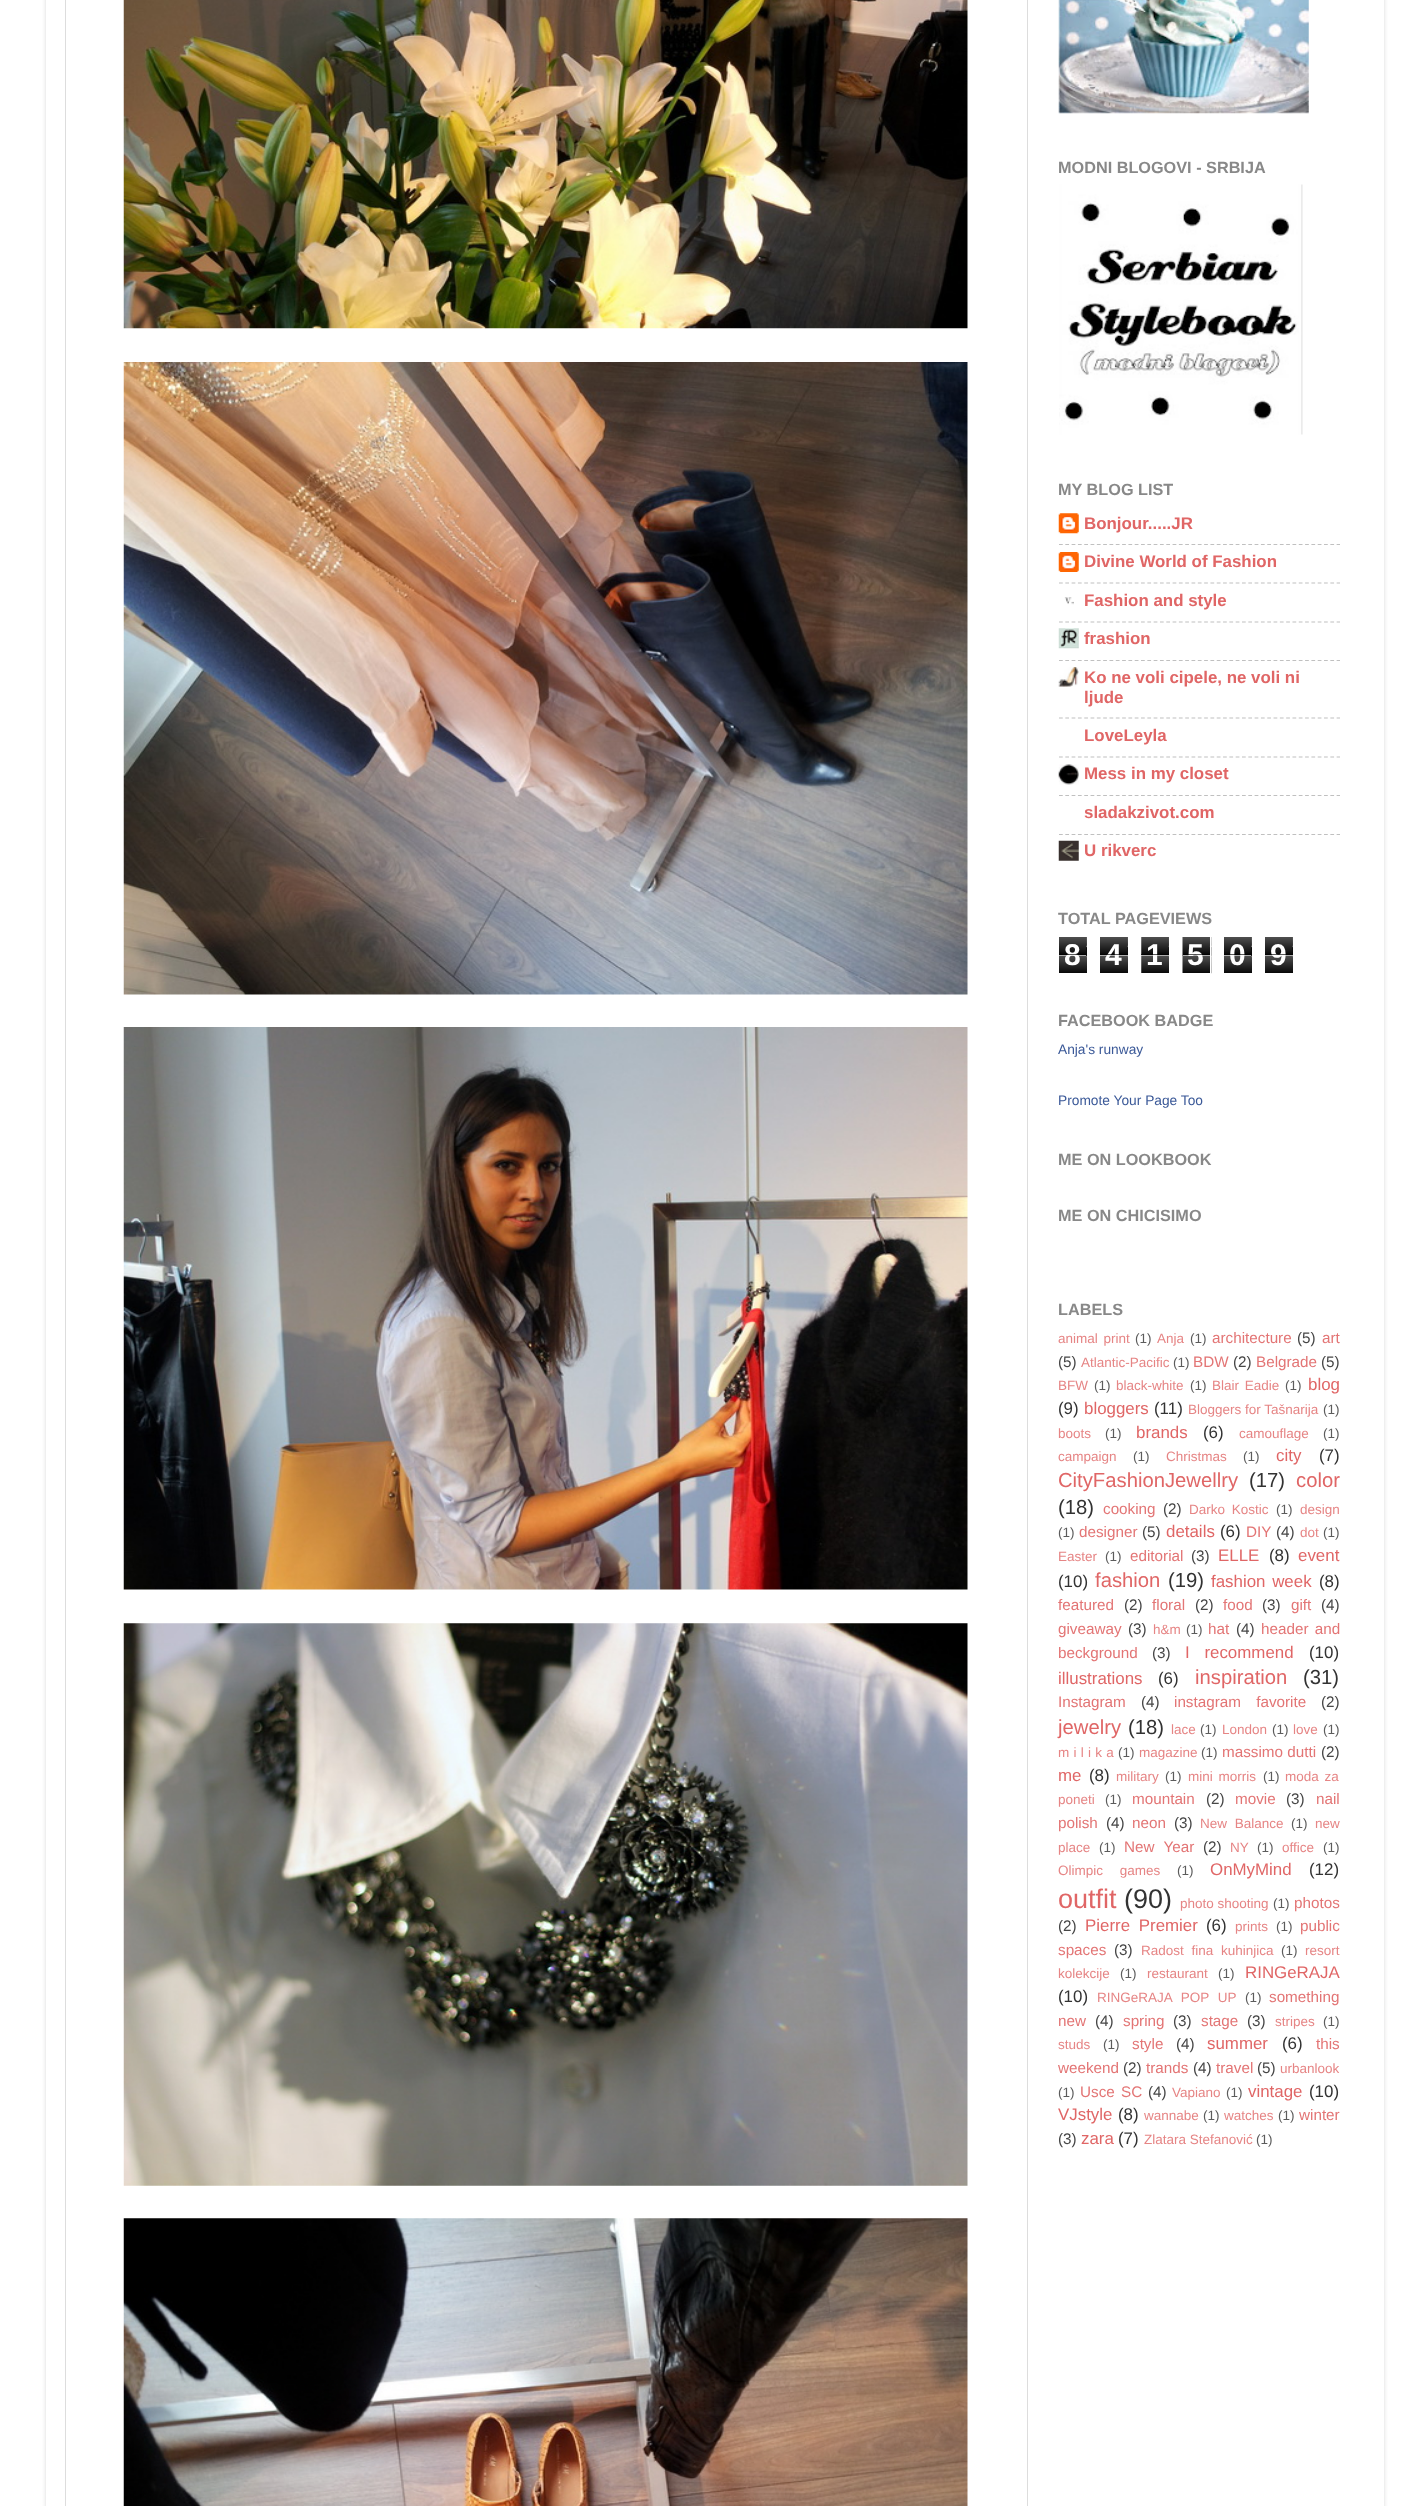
(async () => {
  const canvas = document.querySelector("canvas");
  canvas.width = 1428;
  canvas.height = 2506;
  const ctx = canvas.getContext("2d");
  ctx.miterLimit = 4;
  ctx.fontKerning = "normal";
  async function loadImage(src) {
    const img = new Image();
    img.src = src;
    await img.decode();
    return img;
  }
  let path;

  ctx.fillStyle = "#ffffff";
  ctx.fillRect(0, 0, 1428, 2506);
  ctx.save();
  path = new Path2D("M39 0H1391V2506H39ZM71-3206H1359C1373-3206 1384-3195 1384-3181V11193H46V-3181C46-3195 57-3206 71-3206Z");
  ctx.clip(path, "evenodd");
  ctx.fillStyle = "rgba(0, 0, 0, 0.15)";
  ctx.filter = "blur(2px)";
  ctx.beginPath();
  ctx.roundRect(46, -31, 1338, 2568, 25);
  ctx.fill();
  ctx.filter = "none";
  ctx.restore();
  ctx.strokeStyle = "#dddddd";
  ctx.strokeRect(65.5, -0.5, 962, 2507);
  ctx.drawImage(await loadImage("img/1.png"), 123, 0, 845, 329);
  ctx.drawImage(await loadImage("img/2.png"), 123, 362, 845, 633);
  ctx.drawImage(await loadImage("img/3.png"), 123, 1027, 845, 563);
  ctx.drawImage(await loadImage("img/4.png"), 123, 1623, 845, 563);
  ctx.drawImage(await loadImage("img/5.png"), 123, 2218, 845, 288);
  ctx.drawImage(await loadImage("img/6.png"), 1058, 0, 251, 114);
  ctx.drawImage(await loadImage("img/7.png"), 1059, 184, 244, 251);
  ctx.drawImage(await loadImage("img/8.png"), 1058, 513, 21, 21);
  path = new Path2D("M1059 544.5H1340");
  ctx.strokeStyle = "#c0c0c0";
  ctx.lineWidth = 1.2;
  ctx.setLineDash([3.75, 2.56]);
  ctx.stroke(path);
  ctx.drawImage(await loadImage("img/9.png"), 1058, 552, 21, 20);
  path = new Path2D("M1059 583H1340");
  ctx.stroke(path);
  ctx.drawImage(await loadImage("img/10.png"), 1064, 597, 10, 8);
  path = new Path2D("M1059 622H1340");
  ctx.stroke(path);
  ctx.drawImage(await loadImage("img/11.png"), 1058, 628, 21, 21);
  path = new Path2D("M1059 660.5H1340");
  ctx.stroke(path);
  ctx.drawImage(await loadImage("img/12.png"), 1058, 667, 21, 20);
  path = new Path2D("M1059 718H1340");
  ctx.stroke(path);
  path = new Path2D("M1059 757H1340");
  ctx.stroke(path);
  ctx.drawImage(await loadImage("img/13.png"), 1058, 764, 21, 21);
  path = new Path2D("M1059 795.5H1340");
  ctx.stroke(path);
  path = new Path2D("M1059 834.5H1340");
  ctx.stroke(path);
  ctx.drawImage(await loadImage("img/14.png"), 1058, 840, 21, 21);
  ctx.drawImage(await loadImage("img/15.png"), 1059, 937, 28, 36);
  ctx.drawImage(await loadImage("img/16.png"), 1100, 937, 28, 36);
  ctx.drawImage(await loadImage("img/17.png"), 1141, 937, 28, 36);
  ctx.drawImage(await loadImage("img/18.png"), 1182, 937, 30, 37);
  ctx.strokeStyle = "#ffffff";
  ctx.lineWidth = 1;
  ctx.setLineDash([]);
  ctx.strokeRect(1181.5, 936.5, 29, 37);
  ctx.drawImage(await loadImage("img/15.png"), 1224, 937, 28, 36);
  ctx.drawImage(await loadImage("img/19.png"), 1265, 937, 28, 36);
  ctx.font = "bold 16.25px Liberation Sans";
  ctx.fillStyle = "#888888";
  ctx.fillText("MODNI BLOGOVI - SRBIJA", 1058, 173);
  ctx.fillText("MY BLOG LIST", 1058, 495);
  ctx.font = "bold 16.9px Liberation Sans";
  ctx.fillStyle = "#e06666";
  for (const [text, x, y] of [
    ["Bonjour.....JR", 1084, 529],
    ["Divine World of Fashion", 1084, 567],
    ["Fashion and style", 1084, 606],
    ["frashion", 1084, 644],
    ["Ko ne voli cipele, ne voli ni", 1084, 683],
    ["ljude", 1084, 703],
    ["LoveLeyla", 1084, 741],
    ["Mess in my closet", 1084, 779],
    ["sladakzivot.com", 1084, 818],
    ["U rikverc", 1084, 856],
  ]) {
    ctx.fillText(text, x, y);
  }
  ctx.font = "bold 16.25px Liberation Sans";
  ctx.fillStyle = "#888888";
  ctx.fillText("TOTAL PAGEVIEWS", 1058, 924);
  ctx.font = "bold 30px Liberation Sans";
  ctx.fillStyle = "#ffffff";
  ctx.fillText("8", 1064, 965);
  ctx.fillStyle = "rgba(0, 0, 0, 0.65)";
  ctx.fillRect(1059, 954, 27, 1);
  ctx.fillStyle = "rgba(255, 255, 255, 0.65)";
  ctx.fillRect(1059, 955, 27, 1);
  ctx.fillStyle = "#ffffff";
  ctx.fillText("4", 1105, 965);
  ctx.fillStyle = "rgba(0, 0, 0, 0.65)";
  ctx.fillRect(1100, 954, 28, 1);
  ctx.fillStyle = "rgba(255, 255, 255, 0.65)";
  ctx.fillRect(1100, 955, 28, 1);
  ctx.fillStyle = "#ffffff";
  ctx.fillText("1", 1146, 965);
  ctx.fillStyle = "rgba(0, 0, 0, 0.65)";
  ctx.fillRect(1141, 954, 28, 1);
  ctx.fillStyle = "rgba(255, 255, 255, 0.65)";
  ctx.fillRect(1141, 955, 28, 1);
  ctx.fillStyle = "#ffffff";
  ctx.fillText("5", 1187, 965);
  ctx.fillStyle = "rgba(0, 0, 0, 0.65)";
  ctx.fillRect(1183, 954, 27, 1);
  ctx.fillStyle = "rgba(255, 255, 255, 0.65)";
  ctx.fillRect(1183, 955, 27, 1);
  ctx.fillStyle = "#ffffff";
  ctx.fillText("0", 1229, 965);
  ctx.fillStyle = "rgba(0, 0, 0, 0.65)";
  ctx.fillRect(1224, 954, 27, 1);
  ctx.fillStyle = "rgba(255, 255, 255, 0.65)";
  ctx.fillRect(1224, 955, 27, 1);
  ctx.fillStyle = "#ffffff";
  ctx.fillText("9", 1270, 965);
  ctx.fillStyle = "rgba(0, 0, 0, 0.65)";
  ctx.fillRect(1265, 954, 28, 1);
  ctx.fillStyle = "rgba(255, 255, 255, 0.65)";
  ctx.fillRect(1265, 955, 28, 1);
  ctx.font = "bold 16.25px Liberation Sans";
  ctx.fillStyle = "#888888";
  ctx.fillText("FACEBOOK BADGE", 1058, 1026);
  ctx.font = "13.75px Liberation Sans";
  ctx.fillStyle = "#3b5998";
  ctx.fillText("Anja's runway", 1058, 1054);
  ctx.fillText("Promote Your Page Too", 1058, 1105);
  ctx.font = "bold 16.25px Liberation Sans";
  ctx.fillStyle = "#888888";
  for (const [text, x, y] of [
    ["ME ON LOOKBOOK", 1058, 1165],
    ["ME ON CHICISIMO", 1058, 1221],
    ["LABELS", 1058, 1315],
  ]) {
    ctx.fillText(text, x, y);
  }
  ctx.wordSpacing = "2px";
  ctx.font = "13.5px Liberation Sans";
  ctx.fillStyle = "#e68585";
  ctx.fillText("animal print", 1058, 1343);
  ctx.wordSpacing = "0px";
  ctx.fillStyle = "#5c5c5c";
  ctx.fillText("(1)", 1135, 1343);
  ctx.fillStyle = "#e68585";
  ctx.fillText("Anja", 1157, 1343);
  ctx.fillStyle = "#5c5c5c";
  ctx.fillText("(1)", 1190, 1343);
  ctx.font = "15.25px Liberation Sans";
  ctx.fillStyle = "#e37575";
  ctx.fillText("architecture", 1212, 1343);
  ctx.fillStyle = "#474747";
  ctx.fillText("(5)", 1297, 1343);
  ctx.fillStyle = "#e37575";
  ctx.fillText("art", 1322, 1343);
  ctx.fillStyle = "#474747";
  ctx.fillText("(5)", 1058, 1367);
  ctx.font = "13.5px Liberation Sans";
  ctx.fillStyle = "#e68585";
  ctx.fillText("Atlantic-Pacific", 1081, 1367);
  ctx.fillStyle = "#5c5c5c";
  ctx.fillText("(1)", 1173, 1367);
  ctx.font = "15.25px Liberation Sans";
  ctx.fillStyle = "#e37575";
  ctx.fillText("BDW", 1193, 1367);
  ctx.fillStyle = "#474747";
  ctx.fillText("(2)", 1233, 1367);
  ctx.fillStyle = "#e37575";
  ctx.fillText("Belgrade", 1256, 1367);
  ctx.fillStyle = "#474747";
  ctx.fillText("(5)", 1321, 1367);
  ctx.font = "13.5px Liberation Sans";
  ctx.fillStyle = "#e68585";
  ctx.fillText("BFW", 1058, 1390);
  ctx.fillStyle = "#5c5c5c";
  ctx.fillText("(1)", 1094, 1390);
  ctx.fillStyle = "#e68585";
  ctx.fillText("black-white", 1116, 1390);
  ctx.fillStyle = "#5c5c5c";
  ctx.fillText("(1)", 1190, 1390);
  ctx.wordSpacing = "2px";
  ctx.fillStyle = "#e68585";
  ctx.fillText("Blair Eadie", 1212, 1390);
  ctx.wordSpacing = "0px";
  ctx.fillStyle = "#5c5c5c";
  ctx.fillText("(1)", 1285, 1390);
  ctx.font = "16.9px Liberation Sans";
  ctx.fillStyle = "#e06666";
  ctx.fillText("blog", 1308, 1390);
  ctx.fillStyle = "#333333";
  ctx.fillText("(9)", 1058, 1414);
  ctx.fillStyle = "#e06666";
  ctx.fillText("bloggers", 1084, 1414);
  ctx.fillStyle = "#333333";
  ctx.fillText("(11)", 1154, 1414);
  ctx.font = "13.5px Liberation Sans";
  ctx.fillStyle = "#e68585";
  ctx.fillText("Bloggers for Tašnarija", 1188, 1414);
  ctx.fillStyle = "#5c5c5c";
  ctx.fillText("(1)", 1323, 1414);
  ctx.fillStyle = "#e68585";
  ctx.fillText("boots", 1058, 1438);
  ctx.fillStyle = "#5c5c5c";
  ctx.fillText("(1)", 1105, 1438);
  ctx.font = "16.9px Liberation Sans";
  ctx.fillStyle = "#e06666";
  ctx.fillText("brands", 1136, 1438);
  ctx.fillStyle = "#333333";
  ctx.fillText("(6)", 1203, 1438);
  ctx.font = "13.5px Liberation Sans";
  ctx.fillStyle = "#e68585";
  ctx.fillText("camouflage", 1239, 1438);
  ctx.fillStyle = "#5c5c5c";
  ctx.fillText("(1)", 1323, 1438);
  ctx.fillStyle = "#e68585";
  ctx.fillText("campaign", 1058, 1461);
  ctx.fillStyle = "#5c5c5c";
  ctx.fillText("(1)", 1133, 1461);
  ctx.fillStyle = "#e68585";
  ctx.fillText("Christmas", 1166, 1461);
  ctx.fillStyle = "#5c5c5c";
  ctx.fillText("(1)", 1243, 1461);
  ctx.font = "16.9px Liberation Sans";
  ctx.fillStyle = "#e06666";
  ctx.fillText("city", 1276, 1461);
  ctx.fillStyle = "#333333";
  ctx.fillText("(7)", 1319, 1461);
  ctx.font = "20.25px Liberation Sans";
  ctx.fillStyle = "#e06666";
  ctx.fillText("CityFashionJewellry", 1058, 1487);
  ctx.fillStyle = "#333333";
  ctx.fillText("(17)", 1249, 1487);
  ctx.fillStyle = "#e06666";
  ctx.fillText("color", 1296, 1487);
  ctx.fillStyle = "#333333";
  ctx.fillText("(18)", 1058, 1514);
  ctx.font = "15.25px Liberation Sans";
  ctx.fillStyle = "#e37575";
  ctx.fillText("cooking", 1103, 1514);
  ctx.fillStyle = "#474747";
  ctx.fillText("(2)", 1163, 1514);
  ctx.wordSpacing = "3px";
  ctx.font = "13.5px Liberation Sans";
  ctx.fillStyle = "#e68585";
  ctx.fillText("Darko Kostic", 1189, 1514);
  ctx.wordSpacing = "0px";
  ctx.fillStyle = "#5c5c5c";
  ctx.fillText("(1)", 1276, 1514);
  ctx.fillStyle = "#e68585";
  ctx.fillText("design", 1300, 1514);
  ctx.fillStyle = "#5c5c5c";
  ctx.fillText("(1)", 1058, 1537);
  ctx.font = "15.25px Liberation Sans";
  ctx.fillStyle = "#e37575";
  ctx.fillText("designer", 1079, 1537);
  ctx.fillStyle = "#474747";
  ctx.fillText("(5)", 1142, 1537);
  ctx.font = "16.9px Liberation Sans";
  ctx.fillStyle = "#e06666";
  ctx.fillText("details", 1166, 1537);
  ctx.fillStyle = "#333333";
  ctx.fillText("(6)", 1220, 1537);
  ctx.font = "15.25px Liberation Sans";
  ctx.fillStyle = "#e37575";
  ctx.fillText("DIY", 1246, 1537);
  ctx.fillStyle = "#474747";
  ctx.fillText("(4)", 1276, 1537);
  ctx.font = "13.5px Liberation Sans";
  ctx.fillStyle = "#e68585";
  ctx.fillText("dot", 1300, 1537);
  ctx.fillStyle = "#5c5c5c";
  ctx.fillText("(1)", 1323, 1537);
  ctx.fillStyle = "#e68585";
  ctx.fillText("Easter", 1058, 1561);
  ctx.fillStyle = "#5c5c5c";
  ctx.fillText("(1)", 1105, 1561);
  ctx.font = "15.25px Liberation Sans";
  ctx.fillStyle = "#e37575";
  ctx.fillText("editorial", 1130, 1561);
  ctx.fillStyle = "#474747";
  ctx.fillText("(3)", 1191, 1561);
  ctx.font = "16.9px Liberation Sans";
  ctx.fillStyle = "#e06666";
  ctx.fillText("ELLE", 1218, 1561);
  ctx.fillStyle = "#333333";
  ctx.fillText("(8)", 1269, 1561);
  ctx.fillStyle = "#e06666";
  ctx.fillText("event", 1298, 1561);
  ctx.fillStyle = "#333333";
  ctx.fillText("(10)", 1058, 1587);
  ctx.font = "20.25px Liberation Sans";
  ctx.fillStyle = "#e06666";
  ctx.fillText("fashion", 1095, 1587);
  ctx.fillStyle = "#333333";
  ctx.fillText("(19)", 1168, 1587);
  ctx.wordSpacing = "2px";
  ctx.font = "16.9px Liberation Sans";
  ctx.fillStyle = "#e06666";
  ctx.fillText("fashion week", 1211, 1587);
  ctx.wordSpacing = "0px";
  ctx.fillStyle = "#333333";
  ctx.fillText("(8)", 1319, 1587);
  ctx.font = "15.25px Liberation Sans";
  ctx.fillStyle = "#e37575";
  ctx.fillText("featured", 1058, 1610);
  ctx.fillStyle = "#474747";
  ctx.fillText("(2)", 1124, 1610);
  ctx.fillStyle = "#e37575";
  ctx.fillText("floral", 1152, 1610);
  ctx.fillStyle = "#474747";
  ctx.fillText("(2)", 1195, 1610);
  ctx.fillStyle = "#e37575";
  ctx.fillText("food", 1223, 1610);
  ctx.fillStyle = "#474747";
  ctx.fillText("(3)", 1262, 1610);
  ctx.fillStyle = "#e37575";
  ctx.fillText("gift", 1291, 1610);
  ctx.fillStyle = "#474747";
  ctx.fillText("(4)", 1321, 1610);
  ctx.fillStyle = "#e37575";
  ctx.fillText("giveaway", 1058, 1634);
  ctx.fillStyle = "#474747";
  ctx.fillText("(3)", 1128, 1634);
  ctx.font = "13.5px Liberation Sans";
  ctx.fillStyle = "#e68585";
  ctx.fillText("h&m", 1153, 1634);
  ctx.fillStyle = "#5c5c5c";
  ctx.fillText("(1)", 1186, 1634);
  ctx.font = "15.25px Liberation Sans";
  ctx.fillStyle = "#e37575";
  ctx.fillText("hat", 1208, 1634);
  ctx.fillStyle = "#474747";
  ctx.fillText("(4)", 1236, 1634);
  ctx.wordSpacing = "2px";
  ctx.fillStyle = "#e37575";
  ctx.fillText("header and", 1261, 1634);
  ctx.wordSpacing = "0px";
  ctx.fillText("beckground", 1058, 1658);
  ctx.fillStyle = "#474747";
  ctx.fillText("(3)", 1152, 1658);
  ctx.wordSpacing = "10px";
  ctx.font = "16.9px Liberation Sans";
  ctx.fillStyle = "#e06666";
  ctx.fillText("I recommend", 1185, 1658);
  ctx.wordSpacing = "0px";
  ctx.fillStyle = "#333333";
  ctx.fillText("(10)", 1309, 1658);
  ctx.fillStyle = "#e06666";
  ctx.fillText("illustrations", 1058, 1684);
  ctx.fillStyle = "#333333";
  ctx.fillText("(6)", 1158, 1684);
  ctx.font = "20.25px Liberation Sans";
  ctx.fillStyle = "#e06666";
  ctx.fillText("inspiration", 1195, 1684);
  ctx.fillStyle = "#333333";
  ctx.fillText("(31)", 1303, 1684);
  ctx.font = "15.25px Liberation Sans";
  ctx.fillStyle = "#e37575";
  ctx.fillText("Instagram", 1058, 1707);
  ctx.fillStyle = "#474747";
  ctx.fillText("(4)", 1141, 1707);
  ctx.wordSpacing = "11px";
  ctx.fillStyle = "#e37575";
  ctx.fillText("instagram favorite", 1174, 1707);
  ctx.wordSpacing = "0px";
  ctx.fillStyle = "#474747";
  ctx.fillText("(2)", 1321, 1707);
  ctx.font = "20.25px Liberation Sans";
  ctx.fillStyle = "#e06666";
  ctx.fillText("jewelry", 1058, 1734);
  ctx.fillStyle = "#333333";
  ctx.fillText("(18)", 1128, 1734);
  ctx.font = "13.5px Liberation Sans";
  ctx.fillStyle = "#e68585";
  ctx.fillText("lace", 1171, 1734);
  ctx.fillStyle = "#5c5c5c";
  ctx.fillText("(1)", 1200, 1734);
  ctx.fillStyle = "#e68585";
  ctx.fillText("London", 1222, 1734);
  ctx.fillStyle = "#5c5c5c";
  ctx.fillText("(1)", 1272, 1734);
  ctx.fillStyle = "#e68585";
  ctx.fillText("love", 1293, 1734);
  ctx.fillStyle = "#5c5c5c";
  ctx.fillText("(1)", 1323, 1734);
  ctx.wordSpacing = "0.5px";
  ctx.fillStyle = "#e68585";
  ctx.fillText("m i l i k a", 1058, 1757);
  ctx.wordSpacing = "0px";
  ctx.fillStyle = "#5c5c5c";
  ctx.fillText("(1)", 1118, 1757);
  ctx.fillStyle = "#e68585";
  ctx.fillText("magazine", 1139, 1757);
  ctx.fillStyle = "#5c5c5c";
  ctx.fillText("(1)", 1201, 1757);
  ctx.font = "15.25px Liberation Sans";
  ctx.fillStyle = "#e37575";
  ctx.fillText("massimo dutti", 1222, 1757);
  ctx.fillStyle = "#474747";
  ctx.fillText("(2)", 1321, 1757);
  ctx.font = "16.9px Liberation Sans";
  ctx.fillStyle = "#e06666";
  ctx.fillText("me", 1058, 1781);
  ctx.fillStyle = "#333333";
  ctx.fillText("(8)", 1089, 1781);
  ctx.font = "13.5px Liberation Sans";
  ctx.fillStyle = "#e68585";
  ctx.fillText("military", 1116, 1781);
  ctx.fillStyle = "#5c5c5c";
  ctx.fillText("(1)", 1165, 1781);
  ctx.wordSpacing = "2px";
  ctx.fillStyle = "#e68585";
  ctx.fillText("mini morris", 1188, 1781);
  ctx.wordSpacing = "0px";
  ctx.fillStyle = "#5c5c5c";
  ctx.fillText("(1)", 1263, 1781);
  ctx.wordSpacing = "2px";
  ctx.fillStyle = "#e68585";
  ctx.fillText("moda za", 1285, 1781);
  ctx.wordSpacing = "0px";
  ctx.fillText("poneti", 1058, 1804);
  ctx.fillStyle = "#5c5c5c";
  ctx.fillText("(1)", 1105, 1804);
  ctx.font = "15.25px Liberation Sans";
  ctx.fillStyle = "#e37575";
  ctx.fillText("mountain", 1132, 1804);
  ctx.fillStyle = "#474747";
  ctx.fillText("(2)", 1206, 1804);
  ctx.fillStyle = "#e37575";
  ctx.fillText("movie", 1235, 1804);
  ctx.fillStyle = "#474747";
  ctx.fillText("(3)", 1286, 1804);
  ctx.fillStyle = "#e37575";
  ctx.fillText("nail", 1316, 1804);
  ctx.fillText("polish", 1058, 1828);
  ctx.fillStyle = "#474747";
  ctx.fillText("(4)", 1106, 1828);
  ctx.fillStyle = "#e37575";
  ctx.fillText("neon", 1132, 1828);
  ctx.fillStyle = "#474747";
  ctx.fillText("(3)", 1174, 1828);
  ctx.wordSpacing = "4px";
  ctx.font = "13.5px Liberation Sans";
  ctx.fillStyle = "#e68585";
  ctx.fillText("New Balance", 1200, 1828);
  ctx.wordSpacing = "0px";
  ctx.fillStyle = "#5c5c5c";
  ctx.fillText("(1)", 1291, 1828);
  ctx.fillStyle = "#e68585";
  ctx.fillText("new", 1315, 1828);
  ctx.fillText("place", 1058, 1852);
  ctx.fillStyle = "#5c5c5c";
  ctx.fillText("(1)", 1099, 1852);
  ctx.wordSpacing = "5px";
  ctx.font = "15.25px Liberation Sans";
  ctx.fillStyle = "#e37575";
  ctx.fillText("New Year", 1124, 1852);
  ctx.wordSpacing = "0px";
  ctx.fillStyle = "#474747";
  ctx.fillText("(2)", 1203, 1852);
  ctx.font = "13.5px Liberation Sans";
  ctx.fillStyle = "#e68585";
  ctx.fillText("NY", 1230, 1852);
  ctx.fillStyle = "#5c5c5c";
  ctx.fillText("(1)", 1257, 1852);
  ctx.fillStyle = "#e68585";
  ctx.fillText("office", 1282, 1852);
  ctx.fillStyle = "#5c5c5c";
  ctx.fillText("(1)", 1323, 1852);
  ctx.wordSpacing = "13px";
  ctx.fillStyle = "#e68585";
  ctx.fillText("Olimpic games", 1058, 1875);
  ctx.wordSpacing = "0px";
  ctx.fillStyle = "#5c5c5c";
  ctx.fillText("(1)", 1177, 1875);
  ctx.font = "16.9px Liberation Sans";
  ctx.fillStyle = "#e06666";
  ctx.fillText("OnMyMind", 1210, 1875);
  ctx.fillStyle = "#333333";
  ctx.fillText("(12)", 1309, 1875);
  ctx.font = "27px Liberation Sans";
  ctx.fillStyle = "#e06666";
  ctx.fillText("outfit", 1058, 1908);
  ctx.fillStyle = "#333333";
  ctx.fillText("(90)", 1124, 1908);
  ctx.font = "13.5px Liberation Sans";
  ctx.fillStyle = "#e68585";
  ctx.fillText("photo shooting", 1180, 1908);
  ctx.fillStyle = "#5c5c5c";
  ctx.fillText("(1)", 1273, 1908);
  ctx.font = "15.25px Liberation Sans";
  ctx.fillStyle = "#e37575";
  ctx.fillText("photos", 1294, 1908);
  ctx.fillStyle = "#474747";
  ctx.fillText("(2)", 1058, 1931);
  ctx.wordSpacing = "4px";
  ctx.font = "16.9px Liberation Sans";
  ctx.fillStyle = "#e06666";
  ctx.fillText("Pierre Premier", 1085, 1931);
  ctx.wordSpacing = "0px";
  ctx.fillStyle = "#333333";
  ctx.fillText("(6)", 1206, 1931);
  ctx.font = "13.5px Liberation Sans";
  ctx.fillStyle = "#e68585";
  ctx.fillText("prints", 1235, 1931);
  ctx.fillStyle = "#5c5c5c";
  ctx.fillText("(1)", 1276, 1931);
  ctx.font = "15.25px Liberation Sans";
  ctx.fillStyle = "#e37575";
  ctx.fillText("public", 1300, 1931);
  ctx.fillText("spaces", 1058, 1955);
  ctx.fillStyle = "#474747";
  ctx.fillText("(3)", 1114, 1955);
  ctx.wordSpacing = "4px";
  ctx.font = "13.5px Liberation Sans";
  ctx.fillStyle = "#e68585";
  ctx.fillText("Radost fina kuhinjica", 1141, 1955);
  ctx.wordSpacing = "0px";
  ctx.fillStyle = "#5c5c5c";
  ctx.fillText("(1)", 1281, 1955);
  ctx.fillStyle = "#e68585";
  ctx.fillText("resort", 1305, 1955);
  ctx.fillText("kolekcije", 1058, 1978);
  ctx.fillStyle = "#5c5c5c";
  ctx.fillText("(1)", 1120, 1978);
  ctx.fillStyle = "#e68585";
  ctx.fillText("restaurant", 1147, 1978);
  ctx.fillStyle = "#5c5c5c";
  ctx.fillText("(1)", 1218, 1978);
  ctx.font = "16.9px Liberation Sans";
  ctx.fillStyle = "#e06666";
  ctx.fillText("RINGeRAJA", 1245, 1978);
  ctx.fillStyle = "#333333";
  ctx.fillText("(10)", 1058, 2002);
  ctx.wordSpacing = "5px";
  ctx.font = "13.5px Liberation Sans";
  ctx.fillStyle = "#e68585";
  ctx.fillText("RINGeRAJA POP UP", 1097, 2002);
  ctx.wordSpacing = "0px";
  ctx.fillStyle = "#5c5c5c";
  ctx.fillText("(1)", 1245, 2002);
  ctx.font = "15.25px Liberation Sans";
  ctx.fillStyle = "#e37575";
  ctx.fillText("something", 1269, 2002);
  ctx.fillText("new", 1058, 2026);
  ctx.fillStyle = "#474747";
  ctx.fillText("(4)", 1095, 2026);
  ctx.fillStyle = "#e37575";
  ctx.fillText("spring", 1123, 2026);
  ctx.fillStyle = "#474747";
  ctx.fillText("(3)", 1173, 2026);
  ctx.fillStyle = "#e37575";
  ctx.fillText("stage", 1201, 2026);
  ctx.fillStyle = "#474747";
  ctx.fillText("(3)", 1247, 2026);
  ctx.font = "13.5px Liberation Sans";
  ctx.fillStyle = "#e68585";
  ctx.fillText("stripes", 1275, 2026);
  ctx.fillStyle = "#5c5c5c";
  ctx.fillText("(1)", 1323, 2026);
  ctx.fillStyle = "#e68585";
  ctx.fillText("studs", 1058, 2049);
  ctx.fillStyle = "#5c5c5c";
  ctx.fillText("(1)", 1103, 2049);
  ctx.font = "15.25px Liberation Sans";
  ctx.fillStyle = "#e37575";
  ctx.fillText("style", 1132, 2049);
  ctx.fillStyle = "#474747";
  ctx.fillText("(4)", 1176, 2049);
  ctx.font = "16.9px Liberation Sans";
  ctx.fillStyle = "#e06666";
  ctx.fillText("summer", 1207, 2049);
  ctx.fillStyle = "#333333";
  ctx.fillText("(6)", 1282, 2049);
  ctx.font = "15.25px Liberation Sans";
  ctx.fillStyle = "#e37575";
  ctx.fillText("this", 1316, 2049);
  ctx.fillText("weekend", 1058, 2073);
  ctx.fillStyle = "#474747";
  ctx.fillText("(2)", 1123, 2073);
  ctx.fillStyle = "#e37575";
  ctx.fillText("trands", 1146, 2073);
  ctx.fillStyle = "#474747";
  ctx.fillText("(4)", 1193, 2073);
  ctx.fillStyle = "#e37575";
  ctx.fillText("travel", 1216, 2073);
  ctx.fillStyle = "#474747";
  ctx.fillText("(5)", 1257, 2073);
  ctx.font = "13.5px Liberation Sans";
  ctx.fillStyle = "#e68585";
  ctx.fillText("urbanlook", 1280, 2073);
  ctx.fillStyle = "#5c5c5c";
  ctx.fillText("(1)", 1058, 2097);
  ctx.wordSpacing = "2px";
  ctx.font = "15.25px Liberation Sans";
  ctx.fillStyle = "#e37575";
  ctx.fillText("Usce SC", 1080, 2097);
  ctx.wordSpacing = "0px";
  ctx.fillStyle = "#474747";
  ctx.fillText("(4)", 1148, 2097);
  ctx.font = "13.5px Liberation Sans";
  ctx.fillStyle = "#e68585";
  ctx.fillText("Vapiano", 1172, 2097);
  ctx.fillStyle = "#5c5c5c";
  ctx.fillText("(1)", 1226, 2097);
  ctx.font = "16.9px Liberation Sans";
  ctx.fillStyle = "#e06666";
  ctx.fillText("vintage", 1248, 2097);
  ctx.fillStyle = "#333333";
  ctx.fillText("(10)", 1309, 2097);
  ctx.fillStyle = "#e06666";
  ctx.fillText("VJstyle", 1058, 2120);
  ctx.fillStyle = "#333333";
  ctx.fillText("(8)", 1118, 2120);
  ctx.font = "13.5px Liberation Sans";
  ctx.fillStyle = "#e68585";
  ctx.fillText("wannabe", 1144, 2120);
  ctx.fillStyle = "#5c5c5c";
  ctx.fillText("(1)", 1203, 2120);
  ctx.fillStyle = "#e68585";
  ctx.fillText("watches", 1224, 2120);
  ctx.fillStyle = "#5c5c5c";
  ctx.fillText("(1)", 1278, 2120);
  ctx.font = "15.25px Liberation Sans";
  ctx.fillStyle = "#e37575";
  ctx.fillText("winter", 1299, 2120);
  ctx.fillStyle = "#474747";
  ctx.fillText("(3)", 1058, 2144);
  ctx.font = "16.9px Liberation Sans";
  ctx.fillStyle = "#e06666";
  ctx.fillText("zara", 1081, 2144);
  ctx.fillStyle = "#333333";
  ctx.fillText("(7)", 1118, 2144);
  ctx.font = "13.5px Liberation Sans";
  ctx.fillStyle = "#e68585";
  ctx.fillText("Zlatara Stefanović", 1144, 2144);
  ctx.fillStyle = "#5c5c5c";
  ctx.fillText("(1)", 1256, 2144);
})();
